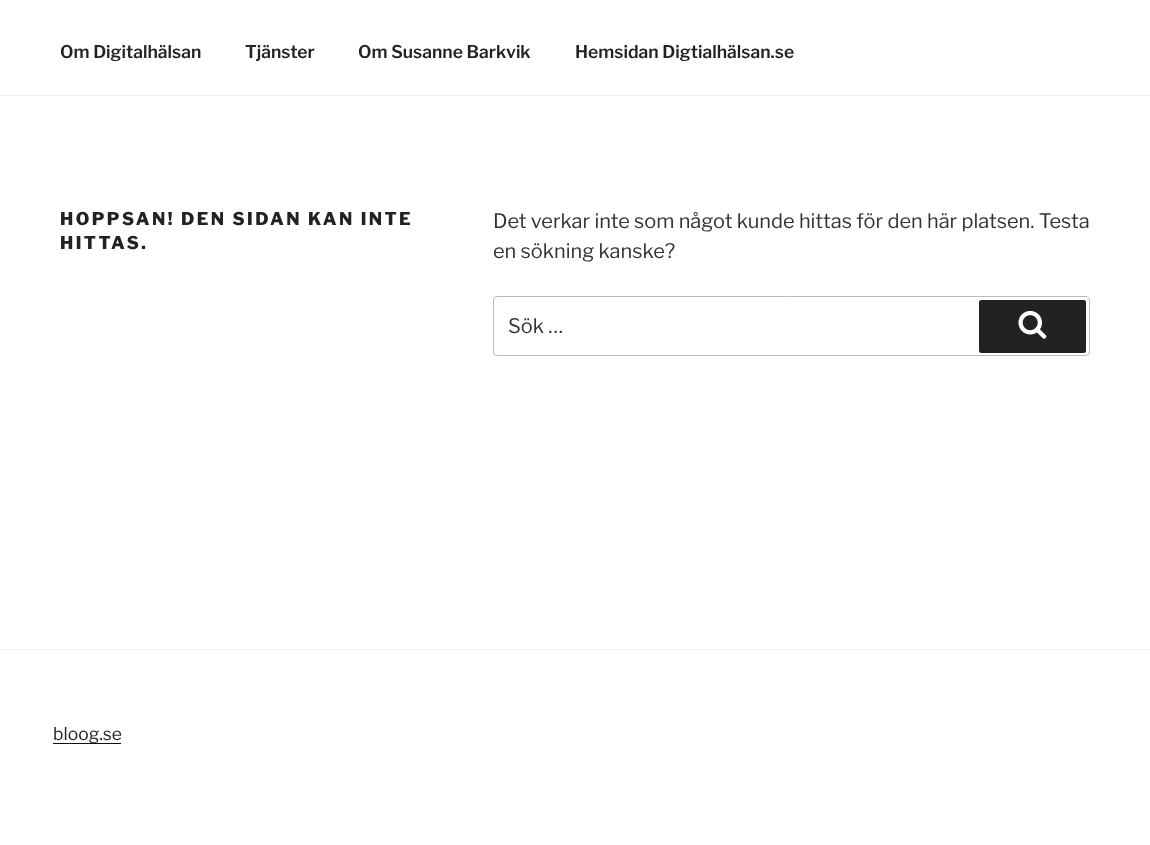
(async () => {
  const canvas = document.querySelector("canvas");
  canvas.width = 1150;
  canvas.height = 845;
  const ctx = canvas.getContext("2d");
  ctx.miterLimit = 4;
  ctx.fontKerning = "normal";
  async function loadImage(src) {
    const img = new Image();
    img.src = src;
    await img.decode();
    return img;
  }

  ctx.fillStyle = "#ffffff";
  ctx.fillRect(0, 0, 1150, 845);
  ctx.fillStyle = "#eeeeee";
  ctx.fillRect(0, 95, 1150, 1);
  ctx.beginPath();
  ctx.roundRect(493.5, 296.5, 596, 59, 3.5);
  ctx.strokeStyle = "#bbbbbb";
  ctx.stroke();
  ctx.fillStyle = "#222222";
  ctx.beginPath();
  ctx.roundRect(979, 300, 107, 53, 2.5);
  ctx.fill();
  ctx.drawImage(await loadImage("img/1.png"), 1018, 310, 29, 29);
  ctx.fillStyle = "#eeeeee";
  ctx.fillRect(0, 649, 1150, 1);
  ctx.fillStyle = "#0f0f0f";
  ctx.fillRect(53, 743, 68, 1);
  ctx.font = "600 17.5px Libre Franklin";
  ctx.fillStyle = "#222222";
  for (const [text, x, y] of [
    ["Om Digitalhälsan", 60, 58],
    ["Tjänster", 245, 58],
    ["Om Susanne Barkvik", 358, 58],
    ["Hemsidan Digtialhälsan.se", 575, 58],
  ]) {
    ctx.fillText(text, x, y);
  }
  ctx.letterSpacing = "2.45px";
  ctx.font = "800 17.5px Libre Franklin";
  ctx.fillText("HOPPSAN! DEN SIDAN KAN INTE", 60, 225);
  ctx.fillText("HITTAS.", 60, 249);
  ctx.letterSpacing = "0px";
  ctx.font = "20px Libre Franklin";
  ctx.fillStyle = "#333333";
  for (const [text, x, y] of [
    ["Det verkar inte som något kunde hittas för den här platsen. Testa", 493, 228],
    ["en sökning kanske?", 493, 258],
    ["Sök …", 508, 333],
  ]) {
    ctx.fillText(text, x, y);
  }
  ctx.font = "17.5px Libre Franklin";
  ctx.fillStyle = "#222222";
  ctx.fillText("bloog.se", 53, 740);
})();
